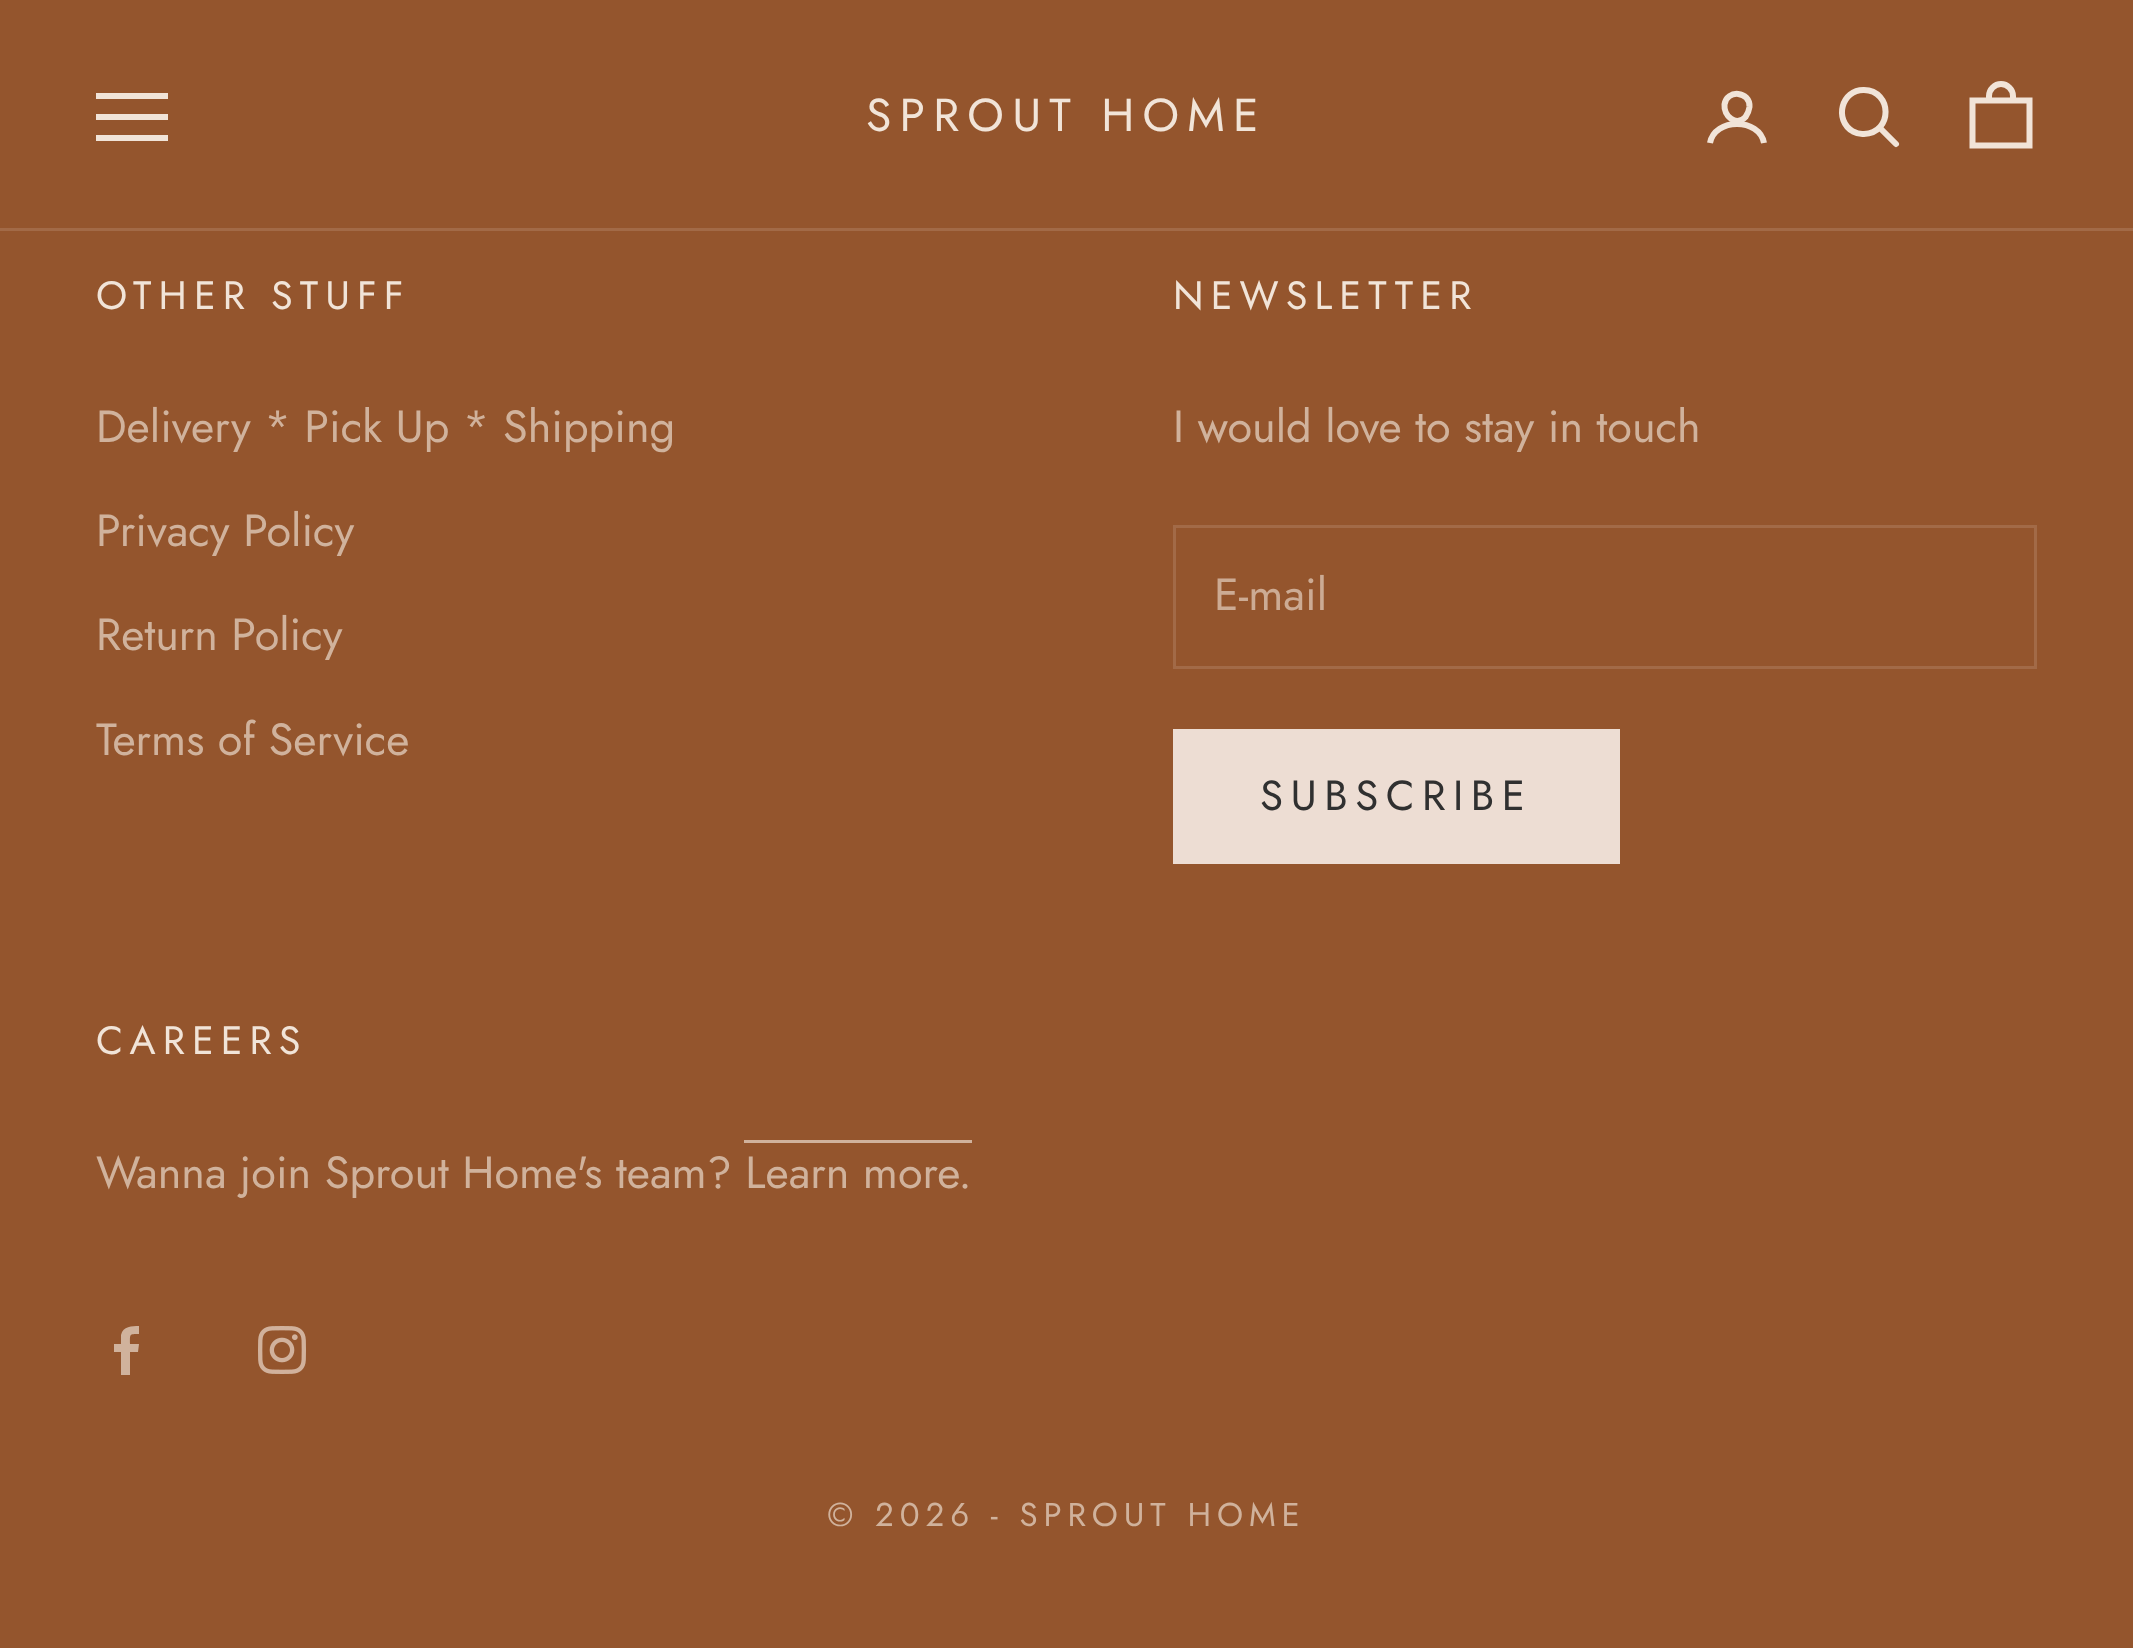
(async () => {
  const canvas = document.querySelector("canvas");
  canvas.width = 2133;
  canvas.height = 1648;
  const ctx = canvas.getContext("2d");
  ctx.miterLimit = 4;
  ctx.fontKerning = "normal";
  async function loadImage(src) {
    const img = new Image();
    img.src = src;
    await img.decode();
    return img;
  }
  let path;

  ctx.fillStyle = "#94552d";
  ctx.fillRect(0, 0, 2133, 1648);
  ctx.fillStyle = "#a26a47";
  ctx.fillRect(0, 228, 2133, 3);
  path = new Path2D("M99 138H165M99 117H165M99 96H165");
  ctx.strokeStyle = "#f1e4d8";
  ctx.lineWidth = 6;
  ctx.lineCap = "square";
  ctx.stroke(path);
  path = new Path2D("M1749.5 107C1749 111 1747.5 114 1745.5 117C1736 127 1723.5 116 1724.5 104.5C1726.5 89 1750.5 91 1749.5 107Z");
  ctx.lineCap = "round";
  ctx.lineJoin = "round";
  ctx.stroke(path);
  path = new Path2D("M1710 143C1714.5 117.5 1759.5 117.5 1764 143");
  ctx.lineCap = "butt";
  ctx.lineJoin = "miter";
  ctx.stroke(path);
  path = new Path2D("M1864 90C1841.5 89.5 1833.5 120 1853 131.5C1856 133 1860.5 134.5 1864 134C1893 133 1892.5 90.5 1864 90Z");
  ctx.stroke(path);
  path = new Path2D("M1880.5 128.5L1896 144");
  ctx.lineCap = "round";
  ctx.stroke(path);
  path = new Path2D("M2029.5 145.5V100.5H1972.5V145.5ZM1989 99V96C1989 89.5 1994.5 84 2001 84C2007.5 84 2013 89.5 2013 96V99");
  ctx.lineCap = "butt";
  ctx.stroke(path);
  ctx.strokeStyle = "#a26a47";
  ctx.lineWidth = 3;
  ctx.strokeRect(1174.5, 526.5, 861, 141);
  ctx.fillStyle = "#edddd3";
  ctx.beginPath();
  ctx.rect(1174.5, 730.5, 444, 132);
  ctx.fill();
  ctx.strokeStyle = "#edddd3";
  ctx.stroke();
  ctx.fillStyle = "#d0b29c";
  ctx.fillRect(744, 1140, 228, 3);
  path = new Path2D("M121 1375V1352H114V1344H121V1335C123 1326 132 1326 139 1326V1334C129 1334 130 1334 130 1344H139L138 1352H130V1375Z");
  ctx.fill(path, "evenodd");
  ctx.drawImage(await loadImage("img/1.png"), 258, 1326, 48, 48);
  ctx.letterSpacing = "8.25px";
  ctx.font = "46.25px Jost";
  ctx.fillStyle = "#f1e4d8";
  ctx.fillText("SPROUT HOME", 866, 131);
  ctx.letterSpacing = "7.1px";
  ctx.font = "39.5px Jost";
  ctx.fillText("OTHER STUFF", 96, 309);
  ctx.letterSpacing = "0px";
  ctx.font = "45px Jost";
  ctx.fillStyle = "#d0b29c";
  for (const [text, x, y] of [
    ["Delivery * Pick Up * Shipping", 96, 442],
    ["Privacy Policy", 96, 546],
    ["Return Policy", 96, 650],
    ["Terms of Service", 96, 755],
  ]) {
    ctx.fillText(text, x, y);
  }
  ctx.letterSpacing = "7.1px";
  ctx.font = "39.5px Jost";
  ctx.fillStyle = "#f1e4d8";
  ctx.fillText("NEWSLETTER", 1173, 309);
  ctx.letterSpacing = "0px";
  ctx.font = "45px Jost";
  ctx.fillStyle = "#d0b29c";
  ctx.fillText("I would love to stay in touch", 1173, 442);
  ctx.fillStyle = "#ccab94";
  ctx.fillText("E-mail", 1214, 610);
  ctx.letterSpacing = "7.5px";
  ctx.font = "42px Jost";
  ctx.fillStyle = "#303030";
  ctx.fillText("SUBSCRIBE", 1260, 810);
  ctx.letterSpacing = "7.1px";
  ctx.font = "39.5px Jost";
  ctx.fillStyle = "#f1e4d8";
  ctx.fillText("CAREERS", 96, 1054);
  ctx.letterSpacing = "0px";
  ctx.font = "45px Jost";
  ctx.fillStyle = "#d0b29c";
  ctx.fillText("Wanna join Sprout Home's team? Learn more.", 96, 1188);
  ctx.letterSpacing = "5.9px";
  ctx.font = "33px Jost";
  ctx.fillText("© 2026 - SPROUT HOME", 827, 1526);
})();
